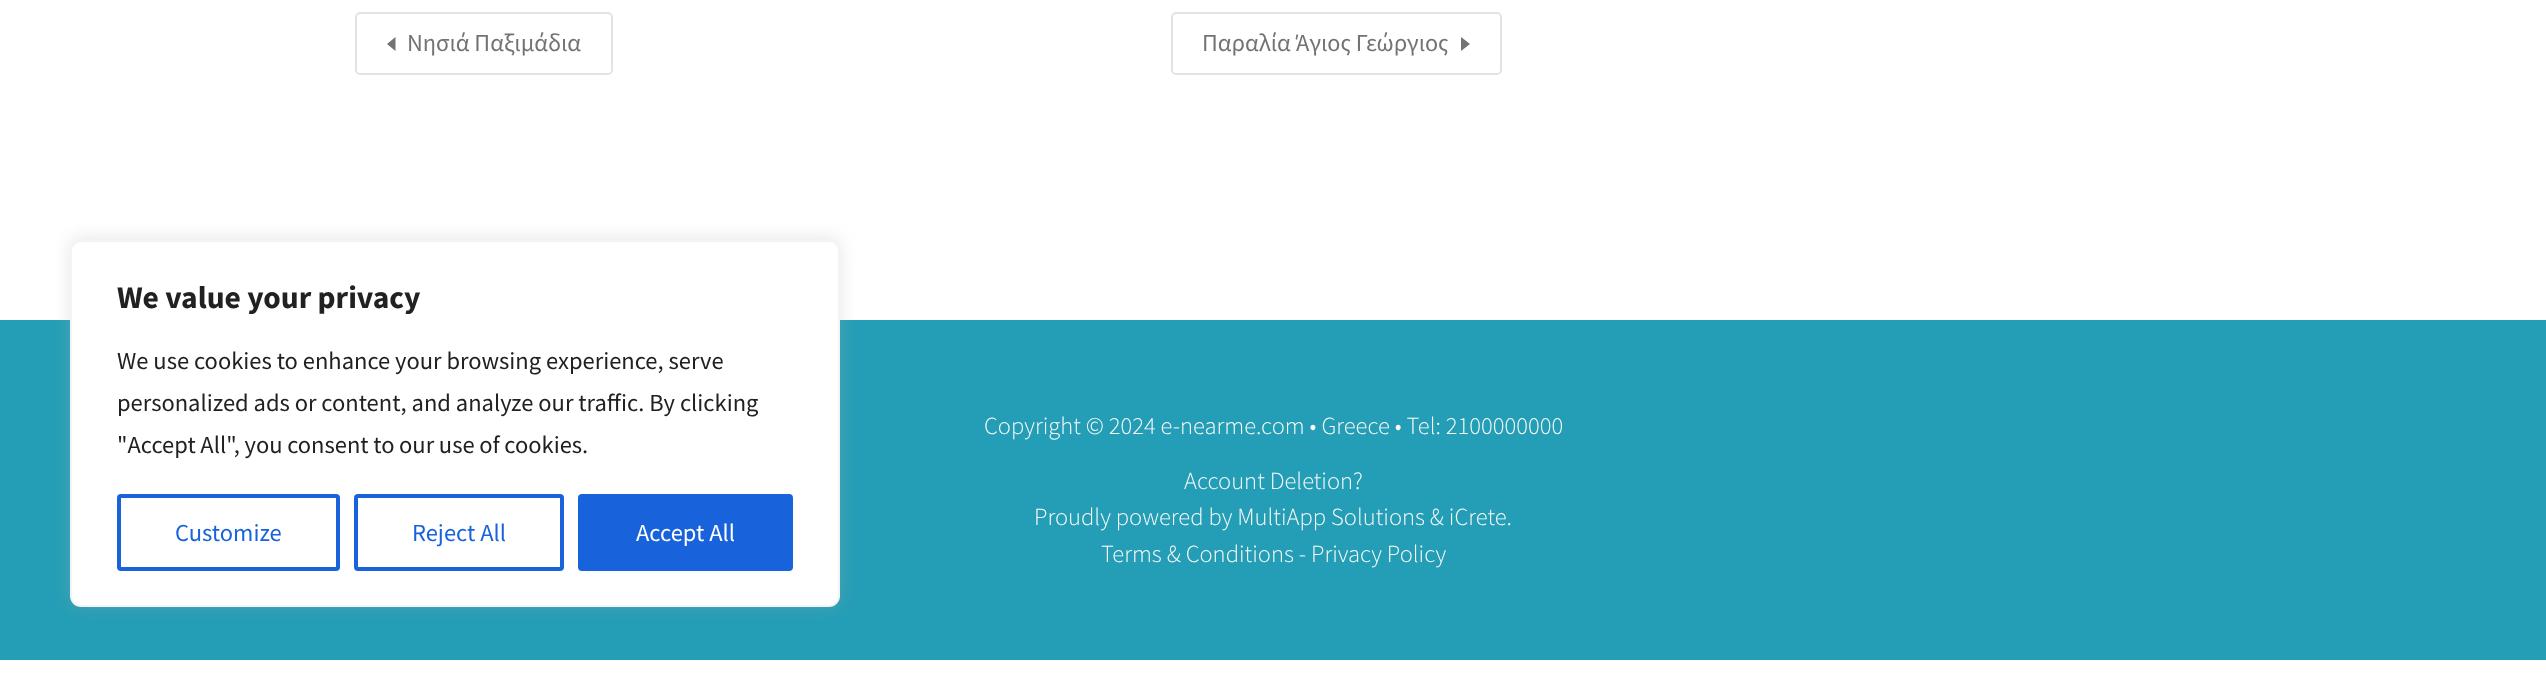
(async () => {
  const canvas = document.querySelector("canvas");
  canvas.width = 2546;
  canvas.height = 677;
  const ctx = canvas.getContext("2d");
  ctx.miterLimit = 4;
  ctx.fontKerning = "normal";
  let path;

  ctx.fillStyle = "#ffffff";
  ctx.fillRect(0, 0, 2546, 677);
  ctx.fillStyle = "#737373";
  path = new Path2D("M395.5 37V51L387 44Z");
  ctx.fill(path);
  ctx.beginPath();
  ctx.roundRect(356, 13, 256, 61, 4);
  ctx.strokeStyle = "#e3e3e3";
  ctx.lineWidth = 2;
  ctx.stroke();
  path = new Path2D("M1461 51V37L1470 44Z");
  ctx.fill(path);
  ctx.beginPath();
  ctx.roundRect(1172, 13, 329, 61, 4);
  ctx.stroke();
  ctx.fillStyle = "#249eb6";
  ctx.fillRect(0, 320, 2546, 340);
  ctx.fillStyle = "rgba(172, 171, 171, 0.3)";
  ctx.filter = "blur(9px)";
  ctx.beginPath();
  ctx.roundRect(70, 238, 770, 368, 11);
  ctx.fill();
  ctx.filter = "none";
  ctx.fillStyle = "#ffffff";
  ctx.beginPath();
  ctx.roundRect(71, 241, 768, 365, 10);
  ctx.fill();
  ctx.strokeStyle = "#f4f4f4";
  ctx.stroke();
  ctx.beginPath();
  ctx.roundRect(119, 496, 219, 73, 2);
  ctx.strokeStyle = "#1863dc";
  ctx.lineWidth = 4;
  ctx.stroke();
  ctx.beginPath();
  ctx.roundRect(356, 496, 206, 73, 2);
  ctx.stroke();
  ctx.fillStyle = "#1863dc";
  ctx.beginPath();
  ctx.roundRect(580, 496, 211, 73, 2);
  ctx.fill();
  ctx.stroke();
  ctx.font = "24.5px Source Sans Pro";
  ctx.fillStyle = "#737373";
  ctx.fillText("Νησιά Παξιμάδια", 407, 51);
  ctx.fillText("Παραλία Άγιος Γεώργιος", 1202, 51);
  ctx.font = "300 24.5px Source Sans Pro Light";
  ctx.fillStyle = "#fcfaf7";
  for (const [text, x, y] of [
    ["Copyright © 2024 e-nearme.com • Greece • Tel: 2100000000", 984, 434],
    ["Account Deletion?", 1184, 489],
    ["Proudly powered by MultiApp Solutions & iCrete.", 1034, 525],
    ["Terms & Conditions - Privacy Policy", 1101, 562],
  ]) {
    ctx.fillText(text, x, y);
  }
  ctx.font = "bold 31.5px Source Sans Pro";
  ctx.fillStyle = "#212121";
  ctx.fillText("We value your privacy", 117, 308);
  ctx.font = "24.5px Source Sans Pro";
  ctx.fillText("We use cookies to enhance your browsing experience, serve", 117, 369);
  ctx.fillText("personalized ads or content, and analyze our traffic. By clicking", 117, 411);
  ctx.wordSpacing = "-0.25px";
  ctx.fillText("\"Accept All\", you consent to our use of cookies.", 117, 453);
  ctx.wordSpacing = "0px";
  ctx.fillStyle = "#1863dc";
  ctx.fillText("Customize", 175, 541);
  ctx.fillText("Reject All", 412, 541);
  ctx.fillStyle = "#ffffff";
  ctx.fillText("Accept All", 636, 541);
})();
